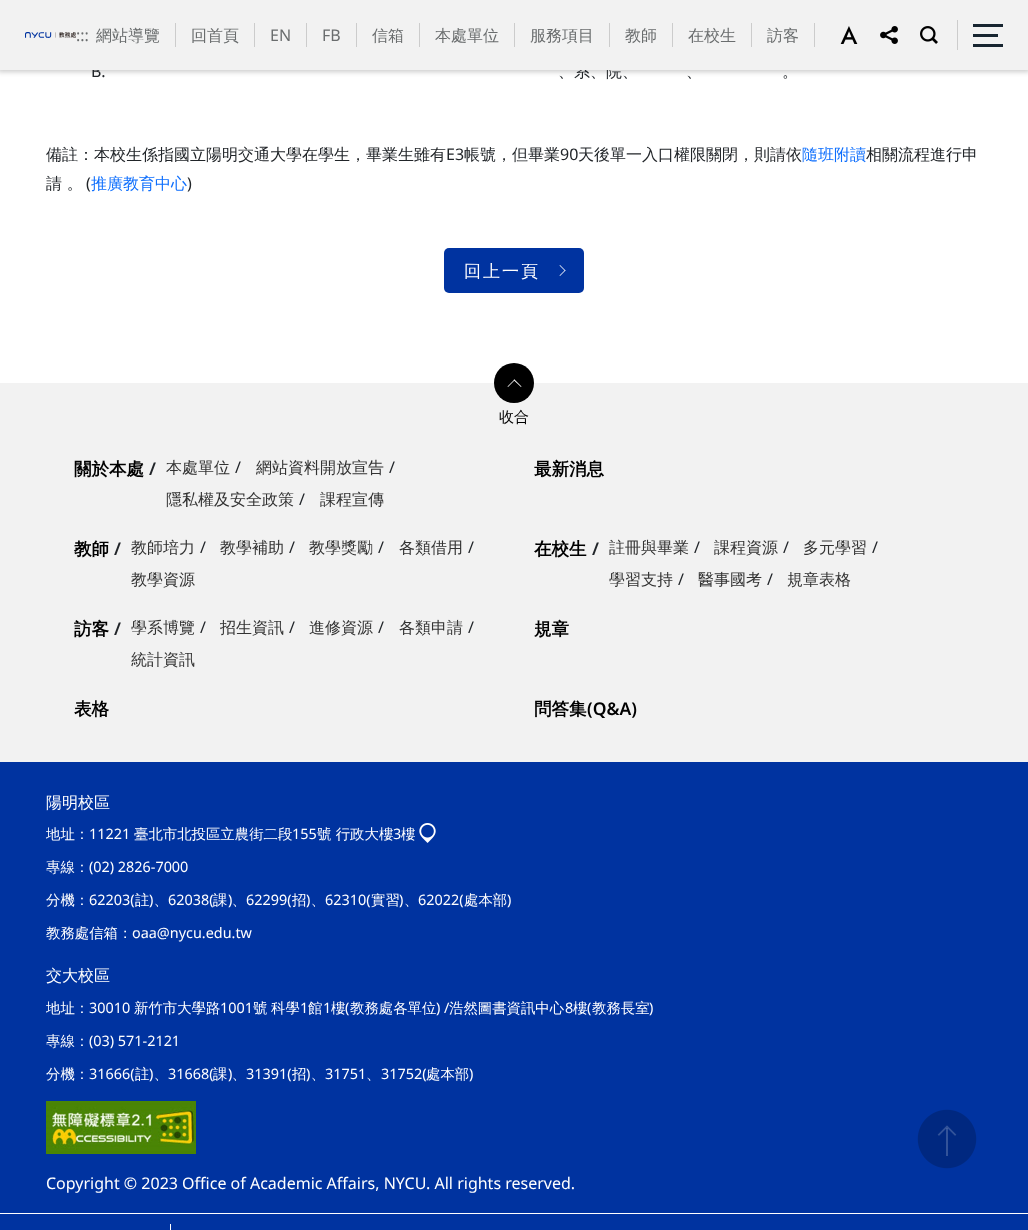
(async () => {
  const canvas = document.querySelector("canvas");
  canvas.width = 1028;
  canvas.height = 1230;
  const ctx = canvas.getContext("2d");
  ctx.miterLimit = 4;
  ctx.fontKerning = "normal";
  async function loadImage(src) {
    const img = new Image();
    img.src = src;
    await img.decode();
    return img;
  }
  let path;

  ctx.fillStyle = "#ffffff";
  ctx.fillRect(0, 0, 1028, 1230);
  ctx.fillStyle = "rgba(0, 0, 0, 0.2)";
  ctx.filter = "blur(2.5px)";
  ctx.beginPath();
  ctx.rect(-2, -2, 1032, 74);
  ctx.fill();
  ctx.filter = "none";
  ctx.fillStyle = "#0033a0";
  ctx.beginPath();
  ctx.roundRect(444, 248, 140, 45, 5);
  ctx.fill();
  ctx.fillStyle = "#ffffff";
  path = new Path2D("M560 265L565.5 270.5L565 271L559.5 265.5Z");
  ctx.fill(path);
  path = new Path2D("M565 270L565.5 270.5L560 276L559.5 275.5Z");
  ctx.fill(path);
  ctx.fillStyle = "#f2f2f2";
  ctx.fillRect(0, 383, 1028, 379);
  ctx.fillStyle = "#000000";
  ctx.beginPath();
  ctx.arc(514, 383, 20, 0, Math.PI * 2);
  ctx.fill();
  ctx.fillStyle = "#ffffff";
  path = new Path2D("M514.5 379.5L521.5 386.5L521 387L513.5 380Z");
  ctx.fill(path);
  path = new Path2D("M514.5 379.5L515 380L508 387L507.5 386.5Z");
  ctx.fill(path);
  ctx.fillStyle = "#0033a0";
  ctx.fillRect(0, 762, 1028, 468);
  ctx.drawImage(await loadImage("img/5.png"), 419, 823, 17, 20);
  ctx.drawImage(await loadImage("img/6.png"), 46, 1101, 150, 53);
  ctx.fillStyle = "#ffffff";
  ctx.fillRect(0, 1213, 1028, 1);
  ctx.fillRect(170, 1224, 1, 6);
  ctx.drawImage(await loadImage("img/7.png"), 917, 1109, 60, 60);
  ctx.font = "16px Noto Sans";
  ctx.fillStyle = "#212529";
  ctx.fillText("B.", 91, 77);
  ctx.font = "500 16px WenQuanYi Zen Hei";
  ctx.fillText("、系、院、", 558, 77);
  for (const [x, y, w, h, color] of [
    [0, 0, 1028, 70, "#f2f2f2"],
    [973, 44, 30, 3, "#182631"],
    [973, 24, 30, 3, "#182631"],
    [973, 34, 25, 3, "#182631"],
  ]) {
    ctx.fillStyle = color;
    ctx.fillRect(x, y, w, h);
  }
  ctx.drawImage(await loadImage("img/3.png"), 880, 26, 18, 18);
  ctx.drawImage(await loadImage("img/2.png"), 840, 26, 18, 18);
  ctx.font = "16px Noto Sans";
  ctx.fillStyle = "#6a6d6e";
  ctx.fillText(":::", 76, 41);
  ctx.font = "500 16px WenQuanYi Zen Hei";
  ctx.fillText("訪客", 767, 41);
  ctx.fillStyle = "#cccccc";
  ctx.fillRect(814, 23, 1, 24);
  ctx.fillStyle = "#6a6d6e";
  ctx.fillText("在校生", 688, 41);
  ctx.fillStyle = "#cccccc";
  ctx.fillRect(751, 23, 1, 24);
  ctx.fillStyle = "#6a6d6e";
  ctx.fillText("教師", 625, 41);
  ctx.fillStyle = "#cccccc";
  ctx.fillRect(672, 23, 1, 24);
  ctx.fillStyle = "#6a6d6e";
  ctx.fillText("服務項目", 530, 41);
  ctx.fillStyle = "#cccccc";
  ctx.fillRect(609, 23, 1, 24);
  ctx.fillStyle = "#6a6d6e";
  ctx.fillText("本處單位", 435, 41);
  ctx.fillStyle = "#cccccc";
  ctx.fillRect(514, 23, 1, 24);
  ctx.fillStyle = "#6a6d6e";
  ctx.fillText("信箱", 372, 41);
  ctx.fillStyle = "#cccccc";
  ctx.fillRect(419, 23, 1, 24);
  ctx.font = "16px Noto Sans";
  ctx.fillStyle = "#6a6d6e";
  ctx.fillText("FB", 322, 41);
  ctx.fillStyle = "#cccccc";
  ctx.fillRect(356, 23, 1, 24);
  ctx.fillStyle = "#6a6d6e";
  ctx.fillText("EN", 270, 41);
  ctx.fillStyle = "#cccccc";
  ctx.fillRect(306, 23, 1, 24);
  ctx.font = "500 16px WenQuanYi Zen Hei";
  ctx.fillStyle = "#6a6d6e";
  ctx.fillText("回首頁", 191, 41);
  ctx.fillStyle = "#cccccc";
  ctx.fillRect(254, 23, 1, 24);
  ctx.fillStyle = "#6a6d6e";
  ctx.fillText("網站導覽", 96, 41);
  ctx.fillStyle = "#cccccc";
  ctx.fillRect(175, 23, 1, 24);
  ctx.drawImage(await loadImage("img/4.png"), 920, 26, 18, 18);
  ctx.fillRect(957, 20, 1, 30);
  ctx.drawImage(await loadImage("img/1.png"), 25, 32, 51, 6);
  ctx.fillStyle = "#212529";
  for (const [text, x, y] of [
    ["、", 686, 77],
    ["。", 782, 77],
    ["備註：本校生係指國立陽明交通大學在學生，畢業生雖有", 46, 160],
  ]) {
    ctx.fillText(text, x, y);
  }
  ctx.font = "16px Noto Sans";
  ctx.fillText("E3", 446, 160);
  ctx.font = "500 16px WenQuanYi Zen Hei";
  ctx.fillText("帳號，但畢業", 464, 160);
  ctx.font = "16px Noto Sans";
  ctx.fillText("90", 560, 160);
  ctx.font = "500 16px WenQuanYi Zen Hei";
  ctx.fillText("天後單一入口權限關閉，則請依", 578, 160);
  ctx.fillStyle = "#0d6efd";
  ctx.fillText("隨班附讀", 802, 160);
  ctx.fillStyle = "#212529";
  ctx.fillText("相關流程進行申", 866, 160);
  ctx.fillText("請 。", 46, 189);
  ctx.font = "16px Noto Sans";
  ctx.fillText("(", 86, 189);
  ctx.font = "500 16px WenQuanYi Zen Hei";
  ctx.fillStyle = "#0d6efd";
  ctx.fillText("推廣教育中心", 91, 189);
  ctx.font = "16px Noto Sans";
  ctx.fillStyle = "#212529";
  ctx.fillText(")", 187, 189);
  ctx.letterSpacing = "2px";
  ctx.font = "500 17px WenQuanYi Zen Hei";
  ctx.fillStyle = "#ffffff";
  ctx.fillText("回上一頁", 464, 277);
  ctx.letterSpacing = "0px";
  ctx.font = "500 15px WenQuanYi Zen Hei";
  ctx.fillStyle = "#000000";
  ctx.fillText("收合", 499, 422);
  ctx.font = "bold 17.5px WenQuanYi Zen Hei";
  ctx.fillText("關於本處", 74, 475);
  ctx.font = "600 17.5px Noto Sans";
  ctx.fillStyle = "#212529";
  ctx.fillText("/", 149, 475);
  ctx.font = "500 16px WenQuanYi Zen Hei";
  ctx.fillStyle = "#333333";
  ctx.fillText("本處單位", 166, 473);
  ctx.font = "16px Noto Sans";
  ctx.fillStyle = "#212529";
  ctx.fillText("/", 235, 473);
  ctx.font = "500 16px WenQuanYi Zen Hei";
  ctx.fillStyle = "#333333";
  ctx.fillText("網站資料開放宣告", 256, 473);
  ctx.font = "16px Noto Sans";
  ctx.fillStyle = "#212529";
  ctx.fillText("/", 389, 473);
  ctx.font = "500 16px WenQuanYi Zen Hei";
  ctx.fillStyle = "#333333";
  ctx.fillText("隱私權及安全政策", 166, 505);
  ctx.font = "16px Noto Sans";
  ctx.fillStyle = "#212529";
  ctx.fillText("/", 299, 505);
  ctx.font = "500 16px WenQuanYi Zen Hei";
  ctx.fillStyle = "#333333";
  ctx.fillText("課程宣傳", 320, 505);
  ctx.font = "bold 17.5px WenQuanYi Zen Hei";
  ctx.fillStyle = "#000000";
  ctx.fillText("最新消息", 534, 475);
  ctx.fillText("教師", 74, 555);
  ctx.font = "600 17.5px Noto Sans";
  ctx.fillStyle = "#212529";
  ctx.fillText("/", 114, 555);
  ctx.font = "500 16px WenQuanYi Zen Hei";
  ctx.fillStyle = "#333333";
  ctx.fillText("教師培力", 131, 553);
  ctx.font = "16px Noto Sans";
  ctx.fillStyle = "#212529";
  ctx.fillText("/", 200, 553);
  ctx.font = "500 16px WenQuanYi Zen Hei";
  ctx.fillStyle = "#333333";
  ctx.fillText("教學補助", 220, 553);
  ctx.font = "16px Noto Sans";
  ctx.fillStyle = "#212529";
  ctx.fillText("/", 289, 553);
  ctx.font = "500 16px WenQuanYi Zen Hei";
  ctx.fillStyle = "#333333";
  ctx.fillText("教學獎勵", 309, 553);
  ctx.font = "16px Noto Sans";
  ctx.fillStyle = "#212529";
  ctx.fillText("/", 378, 553);
  ctx.font = "500 16px WenQuanYi Zen Hei";
  ctx.fillStyle = "#333333";
  ctx.fillText("各類借用", 399, 553);
  ctx.font = "16px Noto Sans";
  ctx.fillStyle = "#212529";
  ctx.fillText("/", 468, 553);
  ctx.font = "500 16px WenQuanYi Zen Hei";
  ctx.fillStyle = "#333333";
  ctx.fillText("教學資源", 131, 585);
  ctx.font = "bold 17.5px WenQuanYi Zen Hei";
  ctx.fillStyle = "#000000";
  ctx.fillText("在校生", 534, 555);
  ctx.font = "600 17.5px Noto Sans";
  ctx.fillStyle = "#212529";
  ctx.fillText("/", 592, 555);
  ctx.font = "500 16px WenQuanYi Zen Hei";
  ctx.fillStyle = "#333333";
  ctx.fillText("註冊與畢業", 609, 553);
  ctx.font = "16px Noto Sans";
  ctx.fillStyle = "#212529";
  ctx.fillText("/", 694, 553);
  ctx.font = "500 16px WenQuanYi Zen Hei";
  ctx.fillStyle = "#333333";
  ctx.fillText("課程資源", 714, 553);
  ctx.font = "16px Noto Sans";
  ctx.fillStyle = "#212529";
  ctx.fillText("/", 783, 553);
  ctx.font = "500 16px WenQuanYi Zen Hei";
  ctx.fillStyle = "#333333";
  ctx.fillText("多元學習", 803, 553);
  ctx.font = "16px Noto Sans";
  ctx.fillStyle = "#212529";
  ctx.fillText("/", 872, 553);
  ctx.font = "500 16px WenQuanYi Zen Hei";
  ctx.fillStyle = "#333333";
  ctx.fillText("學習支持", 609, 585);
  ctx.font = "16px Noto Sans";
  ctx.fillStyle = "#212529";
  ctx.fillText("/", 678, 585);
  ctx.font = "500 16px WenQuanYi Zen Hei";
  ctx.fillStyle = "#333333";
  ctx.fillText("醫事國考", 698, 585);
  ctx.font = "16px Noto Sans";
  ctx.fillStyle = "#212529";
  ctx.fillText("/", 767, 585);
  ctx.font = "500 16px WenQuanYi Zen Hei";
  ctx.fillStyle = "#333333";
  ctx.fillText("規章表格", 787, 585);
  ctx.font = "bold 17.5px WenQuanYi Zen Hei";
  ctx.fillStyle = "#000000";
  ctx.fillText("訪客", 74, 635);
  ctx.font = "600 17.5px Noto Sans";
  ctx.fillStyle = "#212529";
  ctx.fillText("/", 114, 635);
  ctx.font = "500 16px WenQuanYi Zen Hei";
  ctx.fillStyle = "#333333";
  ctx.fillText("學系博覽", 131, 633);
  ctx.font = "16px Noto Sans";
  ctx.fillStyle = "#212529";
  ctx.fillText("/", 200, 633);
  ctx.font = "500 16px WenQuanYi Zen Hei";
  ctx.fillStyle = "#333333";
  ctx.fillText("招生資訊", 220, 633);
  ctx.font = "16px Noto Sans";
  ctx.fillStyle = "#212529";
  ctx.fillText("/", 289, 633);
  ctx.font = "500 16px WenQuanYi Zen Hei";
  ctx.fillStyle = "#333333";
  ctx.fillText("進修資源", 309, 633);
  ctx.font = "16px Noto Sans";
  ctx.fillStyle = "#212529";
  ctx.fillText("/", 378, 633);
  ctx.font = "500 16px WenQuanYi Zen Hei";
  ctx.fillStyle = "#333333";
  ctx.fillText("各類申請", 399, 633);
  ctx.font = "16px Noto Sans";
  ctx.fillStyle = "#212529";
  ctx.fillText("/", 468, 633);
  ctx.font = "500 16px WenQuanYi Zen Hei";
  ctx.fillStyle = "#333333";
  ctx.fillText("統計資訊", 131, 665);
  ctx.font = "bold 17.5px WenQuanYi Zen Hei";
  ctx.fillStyle = "#000000";
  for (const [text, x, y] of [
    ["規章", 534, 635],
    ["表格", 74, 715],
    ["問答集", 534, 715],
  ]) {
    ctx.fillText(text, x, y);
  }
  ctx.font = "600 17.5px Noto Sans";
  ctx.fillText("(Q&A)", 587, 715);
  ctx.font = "500 16px WenQuanYi Zen Hei";
  ctx.fillStyle = "#ffffff";
  ctx.fillText("陽明校區", 46, 808);
  ctx.font = "500 14.4px WenQuanYi Zen Hei";
  ctx.fillText("地址：", 46, 839);
  ctx.font = "14.4px Noto Sans";
  ctx.fillText("11221", 89, 839);
  ctx.font = "500 14.4px WenQuanYi Zen Hei";
  ctx.fillText("臺北市北投區立農街二段", 134, 839);
  ctx.font = "14.4px Noto Sans";
  ctx.fillText("155", 292, 839);
  ctx.font = "500 14.4px WenQuanYi Zen Hei";
  ctx.fillText("號 行政大樓", 317, 839);
  ctx.font = "14.4px Noto Sans";
  ctx.fillText("3", 393, 839);
  ctx.font = "500 14.4px WenQuanYi Zen Hei";
  ctx.fillText("樓", 401, 839);
  ctx.fillText("專線：", 46, 872);
  ctx.font = "14.4px Noto Sans";
  ctx.fillText("(02) 2826-7000", 89, 872);
  ctx.font = "500 14.4px WenQuanYi Zen Hei";
  ctx.fillText("分機：", 46, 905);
  ctx.font = "14.4px Noto Sans";
  ctx.fillText("62203(", 89, 905);
  ctx.font = "500 14.4px WenQuanYi Zen Hei";
  for (const [text, x, y] of [
    ["註 、", 135, 905],
    ["課 、", 213, 905],
    ["實習 、", 371, 905],
    ["處本部", 464, 905],
  ]) {
    ctx.fillText(text, x, y);
  }
  ctx.font = "14.4px Noto Sans";
  for (const [text, x, y] of [
    [")", 149, 905],
    ["62038(", 168, 905],
    [")", 228, 905],
    ["62299(", 246, 905],
  ]) {
    ctx.fillText(text, x, y);
  }
  ctx.font = "500 14.4px WenQuanYi Zen Hei";
  ctx.fillText("招 、", 292, 905);
  ctx.font = "14.4px Noto Sans";
  for (const [text, x, y] of [
    [")", 306, 905],
    ["62310(", 325, 905],
    [")", 399, 905],
    ["62022(", 418, 905],
    [")", 507, 905],
  ]) {
    ctx.fillText(text, x, y);
  }
  ctx.font = "500 14.4px WenQuanYi Zen Hei";
  ctx.fillText("教務處信箱：", 46, 938);
  ctx.font = "14.4px Noto Sans";
  ctx.fillText("oaa@nycu.edu.tw", 132, 938);
  ctx.font = "500 16px WenQuanYi Zen Hei";
  ctx.fillText("交大校區", 46, 981);
  ctx.font = "500 14.4px WenQuanYi Zen Hei";
  ctx.fillText("地址：", 46, 1013);
  ctx.font = "14.4px Noto Sans";
  ctx.fillText("30010", 89, 1013);
  ctx.font = "500 14.4px WenQuanYi Zen Hei";
  ctx.fillText("新竹市大學路", 134, 1013);
  ctx.font = "14.4px Noto Sans";
  ctx.fillText("1001", 220, 1013);
  ctx.font = "500 14.4px WenQuanYi Zen Hei";
  ctx.fillText("號", 253, 1013);
  ctx.fillText("科學", 271, 1013);
  ctx.font = "14.4px Noto Sans";
  ctx.fillText("1", 300, 1013);
  ctx.font = "500 14.4px WenQuanYi Zen Hei";
  ctx.fillText("館", 308, 1013);
  ctx.font = "14.4px Noto Sans";
  ctx.fillText("1", 323, 1013);
  ctx.font = "500 14.4px WenQuanYi Zen Hei";
  ctx.fillText("樓", 331, 1013);
  ctx.font = "14.4px Noto Sans";
  ctx.fillText("(", 345, 1013);
  ctx.font = "500 14.4px WenQuanYi Zen Hei";
  ctx.fillText("教務處各單位", 350, 1013);
  ctx.font = "14.4px Noto Sans";
  ctx.fillText(") /", 436, 1013);
  ctx.font = "500 14.4px WenQuanYi Zen Hei";
  ctx.fillText("浩然圖書資訊中心", 449, 1013);
  ctx.font = "14.4px Noto Sans";
  ctx.fillText("8", 565, 1013);
  ctx.font = "500 14.4px WenQuanYi Zen Hei";
  ctx.fillText("樓", 573, 1013);
  ctx.font = "14.4px Noto Sans";
  ctx.fillText("(", 587, 1013);
  ctx.font = "500 14.4px WenQuanYi Zen Hei";
  ctx.fillText("教務長室", 592, 1013);
  ctx.font = "14.4px Noto Sans";
  ctx.fillText(")", 649, 1013);
  ctx.font = "500 14.4px WenQuanYi Zen Hei";
  ctx.fillText("專線：", 46, 1046);
  ctx.font = "14.4px Noto Sans";
  ctx.fillText("(03) 571-2121", 89, 1046);
  ctx.font = "500 14.4px WenQuanYi Zen Hei";
  ctx.fillText("分機：", 46, 1079);
  ctx.font = "14.4px Noto Sans";
  ctx.fillText("31666(", 89, 1079);
  ctx.font = "500 14.4px WenQuanYi Zen Hei";
  for (const [text, x, y] of [
    ["註 、", 135, 1079],
    ["課 、", 213, 1079],
    ["處本部", 426, 1079],
  ]) {
    ctx.fillText(text, x, y);
  }
  ctx.font = "14.4px Noto Sans";
  for (const [text, x, y] of [
    [")", 149, 1079],
    ["31668(", 168, 1079],
    [")", 228, 1079],
    ["31391(", 246, 1079],
  ]) {
    ctx.fillText(text, x, y);
  }
  ctx.font = "500 14.4px WenQuanYi Zen Hei";
  ctx.fillText("招 、", 292, 1079);
  ctx.font = "14.4px Noto Sans";
  ctx.fillText(")", 306, 1079);
  ctx.fillText("31751", 325, 1079);
  ctx.font = "500 14.4px WenQuanYi Zen Hei";
  ctx.fillText("、", 366, 1079);
  ctx.font = "14.4px Noto Sans";
  ctx.fillText("31752(", 381, 1079);
  ctx.fillText(")", 469, 1079);
  ctx.font = "16px Noto Sans";
  ctx.fillText("Copyright © 2023 Office of Academic Affairs, NYCU. All rights reserved.", 46, 1189);
})();
